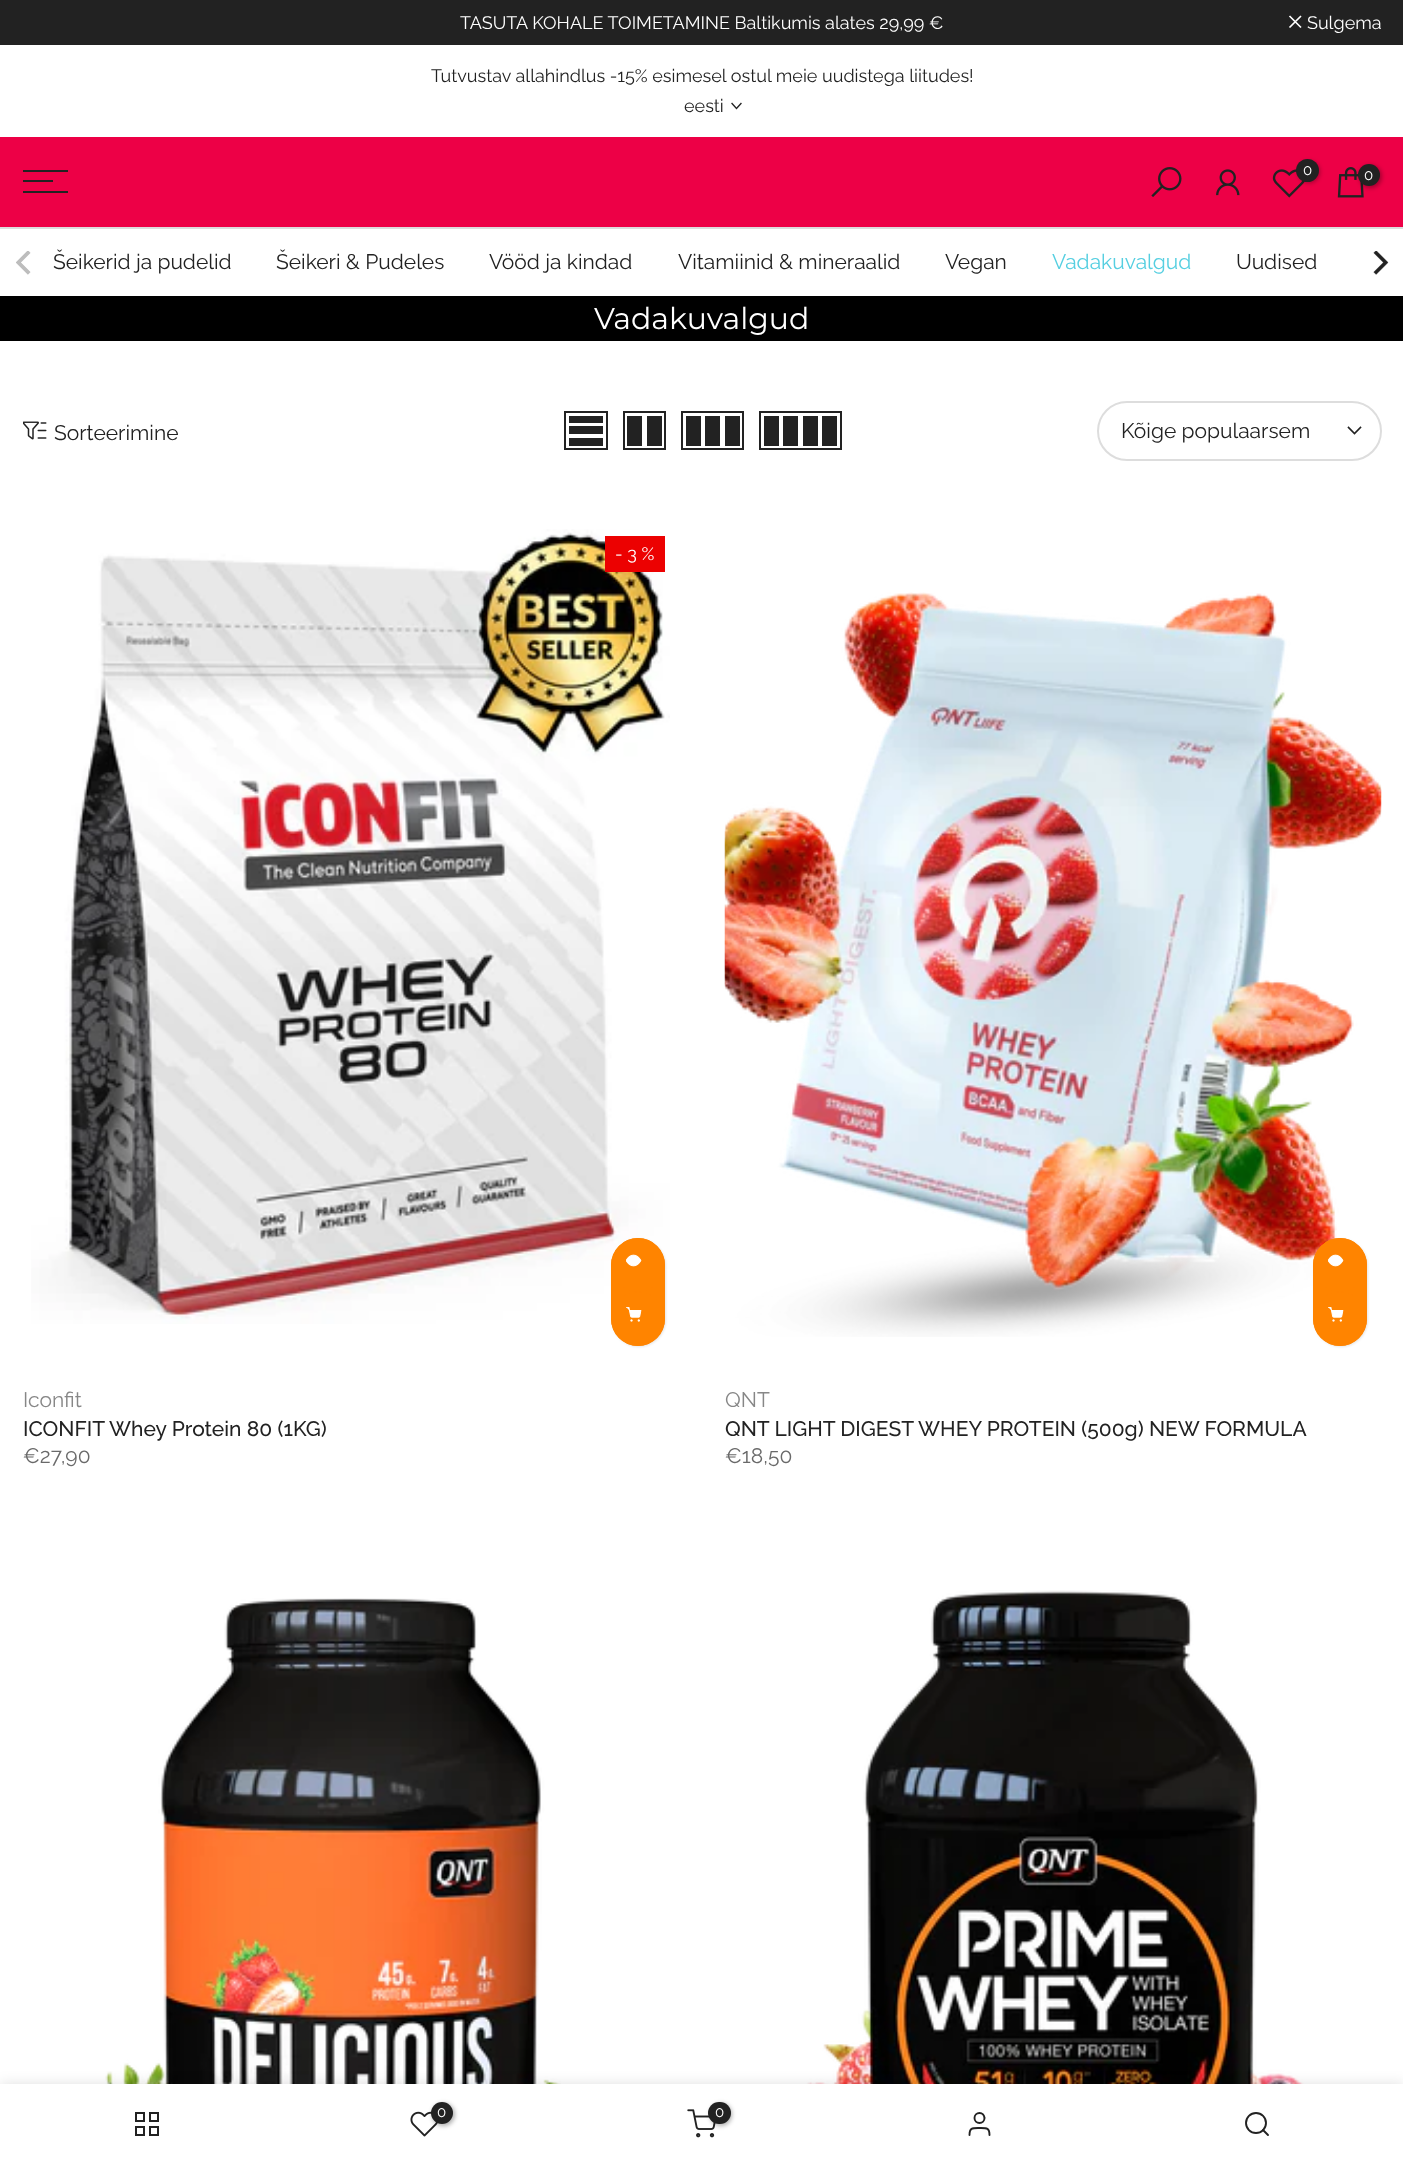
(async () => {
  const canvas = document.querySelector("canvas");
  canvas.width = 1403;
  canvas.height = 2166;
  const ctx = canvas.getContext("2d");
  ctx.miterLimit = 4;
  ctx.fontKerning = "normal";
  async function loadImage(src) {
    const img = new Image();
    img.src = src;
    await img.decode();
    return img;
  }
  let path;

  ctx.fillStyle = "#ffffff";
  ctx.fillRect(0, 0, 1403, 2166);
  ctx.fillStyle = "#222222";
  ctx.fillRect(0, 0, 1403, 45);
  path = new Path2D("M1301 16L1289.5 27.5M1301 27.5L1289.5 16");
  ctx.strokeStyle = "#ffffff";
  ctx.lineWidth = 1.7;
  ctx.stroke(path);
  path = new Path2D("M741 103.5L736.5 108.5L732 103.5");
  ctx.strokeStyle = "#222222";
  ctx.lineWidth = 1.3;
  ctx.lineCap = "square";
  ctx.stroke(path);
  for (const [x, y, w, h, color] of [
    [0, 137, 1403, 90, "#ed0046"],
    [23, 170, 45, 2, "#222222"],
    [23, 180, 30, 2, "#222222"],
    [23, 191, 45, 2, "#222222"],
  ]) {
    ctx.fillStyle = color;
    ctx.fillRect(x, y, w, h);
  }
  ctx.drawImage(await loadImage("img/1.png"), 1151, 167, 31, 30);
  ctx.drawImage(await loadImage("img/2.png"), 1216, 169, 24, 27);
  ctx.drawImage(await loadImage("img/3.png"), 1272, 169, 33, 29);
  ctx.fillStyle = "rgba(0, 0, 0, 0.3)";
  ctx.filter = "blur(2px)";
  ctx.beginPath();
  ctx.roundRect(1298, 161, 22, 22, 11);
  ctx.fill();
  ctx.filter = "none";
  ctx.fillStyle = "#222222";
  ctx.beginPath();
  ctx.arc(1307.5, 170.5, 11.5, 0, Math.PI * 2);
  ctx.fill();
  ctx.drawImage(await loadImage("img/4.png"), 1337, 167, 27, 31);
  ctx.fillStyle = "rgba(0, 0, 0, 0.3)";
  ctx.filter = "blur(2px)";
  ctx.beginPath();
  ctx.roundRect(1359, 165, 23, 23, 11.5);
  ctx.fill();
  ctx.filter = "none";
  ctx.fillStyle = "#222222";
  ctx.beginPath();
  ctx.arc(1369, 175, 11, 0, Math.PI * 2);
  ctx.fill();
  ctx.fillStyle = "#dddddd";
  ctx.fillRect(0, 227, 1403, 2);
  ctx.drawImage(await loadImage("img/5.png"), 16, 251, 15, 24);
  ctx.drawImage(await loadImage("img/6.png"), 1373, 251, 16, 24);
  ctx.fillStyle = "#000000";
  ctx.fillRect(0, 296, 1403, 45);
  ctx.drawImage(await loadImage("img/7.png"), 23, 421, 24, 19);
  ctx.lineWidth = 2;
  ctx.strokeRect(565, 412, 42, 37);
  for (const [x, y, w, h, color] of [
    [569, 438, 34, 8, "#222222"],
    [569, 426, 34, 8, "#222222"],
    [569, 416, 34, 7, "#222222"],
  ]) {
    ctx.fillStyle = color;
    ctx.fillRect(x, y, w, h);
  }
  ctx.strokeRect(624, 412, 41, 37);
  ctx.fillRect(647, 416, 15, 30);
  ctx.fillRect(627, 416, 15, 30);
  ctx.strokeRect(682, 412, 61, 37);
  for (const [x, y, w, h, color] of [
    [725, 416, 15, 30, "#222222"],
    [705, 416, 15, 30, "#222222"],
    [686, 416, 15, 30, "#222222"],
  ]) {
    ctx.fillStyle = color;
    ctx.fillRect(x, y, w, h);
  }
  ctx.strokeRect(760, 412, 81, 37);
  for (const [x, y, w, h, color] of [
    [822, 416, 15, 30, "#222222"],
    [803, 416, 15, 30, "#222222"],
    [783, 416, 15, 30, "#222222"],
    [764, 416, 15, 30, "#222222"],
  ]) {
    ctx.fillStyle = color;
    ctx.fillRect(x, y, w, h);
  }
  ctx.beginPath();
  ctx.roundRect(1098, 402, 283, 58, 29);
  ctx.strokeStyle = "#dddddd";
  ctx.stroke();
  path = new Path2D("M1360.5 427.5L1354.5 433.5L1348.5 427.5");
  ctx.strokeStyle = "#222222";
  ctx.lineWidth = 1.6;
  ctx.stroke(path);
  ctx.drawImage(await loadImage("img/8.png"), 31, 529, 639, 795);
  ctx.fillStyle = "#ec0101";
  ctx.fillRect(605, 536, 60, 36);
  ctx.fillStyle = "rgba(0, 0, 0, 0.1)";
  ctx.filter = "blur(1px)";
  ctx.beginPath();
  ctx.roundRect(612, 1239, 54, 108, 27);
  ctx.fill();
  ctx.filter = "none";
  ctx.fillStyle = "#ff8400";
  ctx.beginPath();
  ctx.roundRect(611, 1238, 54, 108, 27);
  ctx.fill();
  ctx.beginPath();
  ctx.arc(638, 1265, 27, 0, Math.PI * 2);
  ctx.fill();
  ctx.drawImage(await loadImage("img/9.png"), 626, 1254, 16, 13);
  ctx.beginPath();
  ctx.arc(638, 1319, 27, 0, Math.PI * 2);
  ctx.fill();
  ctx.drawImage(await loadImage("img/10.png"), 626, 1307, 16, 15);
  ctx.drawImage(await loadImage("img/11.png"), 724, 592, 658, 745);
  ctx.fillStyle = "rgba(0, 0, 0, 0.1)";
  ctx.filter = "blur(1px)";
  ctx.beginPath();
  ctx.roundRect(1314, 1239, 54, 108, 27);
  ctx.fill();
  ctx.filter = "none";
  ctx.fillStyle = "#ff8400";
  ctx.beginPath();
  ctx.roundRect(1313, 1238, 54, 108, 27);
  ctx.fill();
  ctx.beginPath();
  ctx.arc(1340, 1265, 27, 0, Math.PI * 2);
  ctx.fill();
  ctx.drawImage(await loadImage("img/9.png"), 1328, 1254, 16, 13);
  ctx.beginPath();
  ctx.arc(1340, 1319, 27, 0, Math.PI * 2);
  ctx.fill();
  ctx.drawImage(await loadImage("img/10.png"), 1328, 1307, 16, 15);
  ctx.drawImage(await loadImage("img/12.png"), 105, 1598, 456, 486);
  ctx.drawImage(await loadImage("img/13.png"), 806, 1590, 498, 494);
  ctx.fillStyle = "rgba(0, 0, 0, 0.12)";
  ctx.filter = "blur(7px)";
  ctx.beginPath();
  ctx.rect(0, 2084, 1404, 82);
  ctx.fill();
  ctx.filter = "none";
  ctx.fillStyle = "#ffffff";
  ctx.fillRect(0, 2084, 1403, 82);
  ctx.lineWidth = 2;
  ctx.strokeRect(136, 2113, 8, 8);
  ctx.strokeRect(150, 2113, 8, 8);
  ctx.strokeRect(136, 2127, 8, 8);
  ctx.strokeRect(150, 2127, 8, 8);
  ctx.drawImage(await loadImage("img/14.png"), 410, 2111, 28, 26);
  ctx.fillStyle = "rgba(0, 0, 0, 0.3)";
  ctx.filter = "blur(2px)";
  ctx.beginPath();
  ctx.roundRect(432, 2103, 23, 23, 11.5);
  ctx.fill();
  ctx.filter = "none";
  ctx.fillStyle = "#222222";
  ctx.beginPath();
  ctx.arc(442, 2113, 11, 0, Math.PI * 2);
  ctx.fill();
  ctx.drawImage(await loadImage("img/15.png"), 687, 2109, 29, 29);
  ctx.fillStyle = "rgba(0, 0, 0, 0.3)";
  ctx.filter = "blur(2px)";
  ctx.beginPath();
  ctx.roundRect(710, 2103, 22, 23, 11);
  ctx.fill();
  ctx.filter = "none";
  ctx.fillStyle = "#222222";
  ctx.beginPath();
  ctx.roundRect(708, 2102, 23, 22, 11);
  ctx.fill();
  ctx.beginPath();
  ctx.arc(979.5, 2118, 5, 0, Math.PI * 2);
  ctx.lineWidth = 1.9;
  ctx.stroke();
  path = new Path2D("M989.5 2135C989.5 2127.5 986.5 2128 979.5 2128C972.5 2128 969.5 2127.5 969.5 2135");
  ctx.lineCap = "round";
  ctx.lineJoin = "round";
  ctx.stroke(path);
  ctx.beginPath();
  ctx.arc(1256, 2123, 10, 0, Math.PI * 2);
  ctx.stroke();
  path = new Path2D("M1268 2135L1263 2130");
  ctx.stroke(path);
  ctx.font = "18px Raleway";
  ctx.fillStyle = "#ffffff";
  ctx.fillText("TASUTA KOHALE TOIMETAMINE Baltikumis alates 29,99 €", 460, 29);
  ctx.fillText("Sulgema", 1307, 29);
  ctx.fillStyle = "#222222";
  ctx.fillText("Tutvustav allahindlus -15% esimesel ostul meie uudistega liitudes!", 431, 82);
  ctx.fillText("eesti", 684, 112);
  ctx.font = "15px Raleway";
  ctx.fillStyle = "#ffffff";
  ctx.fillText("0", 1303, 175);
  ctx.fillText("0", 1364, 180);
  ctx.font = "21px Raleway";
  ctx.fillStyle = "#222222";
  for (const [text, x, y] of [
    ["Šeikerid ja pudelid", 53, 269],
    ["Šeikeri & Pudeles", 276, 269],
    ["Vööd ja kindad", 489, 269],
    ["Vitamiinid & mineraalid", 678, 269],
    ["Vegan", 945, 269],
  ]) {
    ctx.fillText(text, x, y);
  }
  ctx.fillStyle = "#56cfe1";
  ctx.fillText("Vadakuvalgud", 1052, 269);
  ctx.fillStyle = "#222222";
  ctx.fillText("Uudised", 1236, 269);
  ctx.font = "30px Montserrat";
  ctx.fillStyle = "#ffffff";
  ctx.fillText("Vadakuvalgud", 594, 329);
  ctx.font = "21px Raleway";
  ctx.fillStyle = "#222222";
  ctx.fillText("Sorteerimine", 54, 440);
  ctx.fillText("Kõige populaarsem", 1121, 438);
  ctx.font = "18px Raleway";
  ctx.fillStyle = "#ffffff";
  ctx.fillText("- 3 %", 615, 560);
  ctx.font = "21px Raleway";
  ctx.fillStyle = "#878787";
  ctx.fillText("Iconfit", 23, 1407);
  ctx.font = "500 21px Raleway";
  ctx.fillStyle = "#222222";
  ctx.fillText("ICONFIT Whey Protein 80 (1KG)", 23, 1436);
  ctx.font = "21px Raleway";
  ctx.fillStyle = "#696969";
  ctx.fillText("€27,90", 23, 1463);
  ctx.fillStyle = "#878787";
  ctx.fillText("QNT", 725, 1407);
  ctx.font = "500 21px Raleway";
  ctx.fillStyle = "#222222";
  ctx.fillText("QNT LIGHT DIGEST WHEY PROTEIN (500g) NEW FORMULA", 725, 1436);
  ctx.font = "21px Raleway";
  ctx.fillStyle = "#696969";
  ctx.fillText("€18,50", 725, 1463);
  ctx.font = "15px Raleway";
  ctx.fillStyle = "#ffffff";
  ctx.fillText("0", 437, 2117);
  ctx.fillText("0", 715, 2117);
})();
